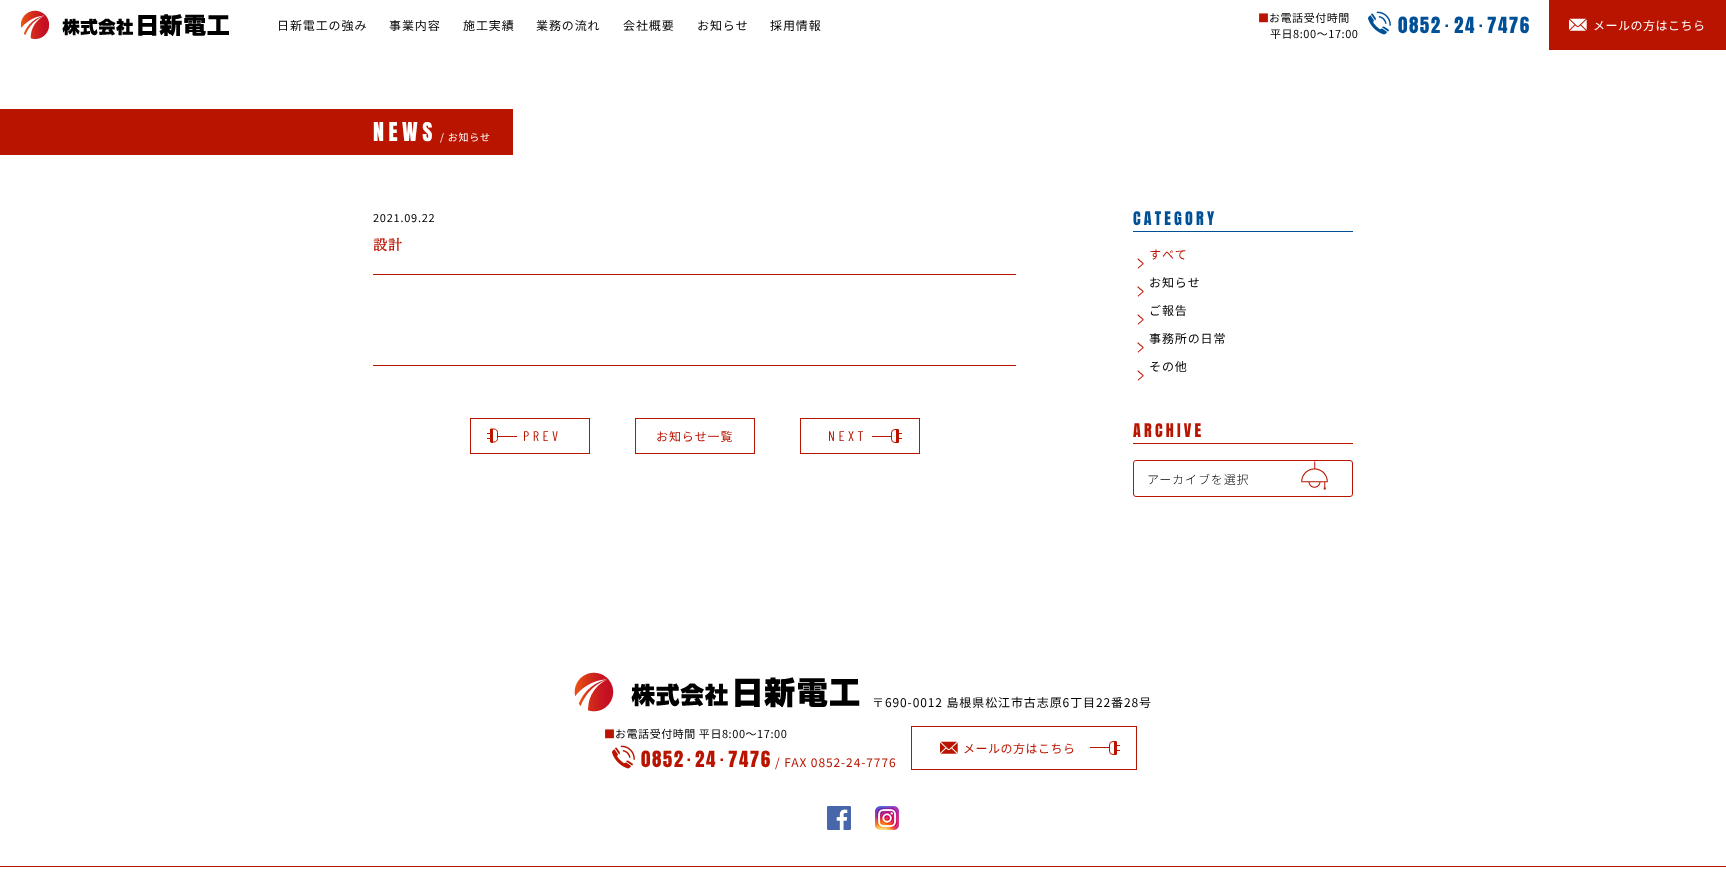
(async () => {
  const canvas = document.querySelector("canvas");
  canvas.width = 1726;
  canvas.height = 883;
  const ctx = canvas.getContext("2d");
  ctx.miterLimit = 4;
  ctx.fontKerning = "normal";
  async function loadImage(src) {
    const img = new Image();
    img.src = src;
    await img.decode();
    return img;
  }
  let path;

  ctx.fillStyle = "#ffffff";
  ctx.fillRect(0, 0, 1726, 883);
  ctx.drawImage(await loadImage("img/1.png"), 21, 10, 208, 29);
  ctx.drawImage(await loadImage("img/2.png"), 1368, 11, 23, 24);
  ctx.fillStyle = "#b91400";
  ctx.fillRect(1549, 0, 177, 50);
  ctx.drawImage(await loadImage("img/3.png"), 1569, 18, 18, 13);
  for (const [x, y, w, h, color] of [
    [0, 109, 513, 46, "#b91400"],
    [373, 274, 643, 1, "#b91400"],
    [373, 365, 643, 1, "#b91400"],
  ]) {
    ctx.fillStyle = color;
    ctx.fillRect(x, y, w, h);
  }
  ctx.strokeStyle = "#b91400";
  ctx.strokeRect(470.5, 418.5, 119, 35);
  for (const [x, y, w, h, color] of [
    [498, 436, 19, 1, "#b91400"],
    [487, 433, 3, 1, "#b91400"],
    [487, 438, 3, 1, "#b91400"],
  ]) {
    ctx.fillStyle = color;
    ctx.fillRect(x, y, w, h);
  }
  path = new Path2D("M494 429H490.5V442H494C496 442 497.5 440.5 497.5 438.5V432.5C497.5 430.5 496 429 494 429Z");
  ctx.stroke(path);
  ctx.fillRect(491, 429, 2, 14);
  ctx.strokeRect(635.5, 418.5, 119, 35);
  ctx.strokeRect(800.5, 418.5, 119, 35);
  ctx.fillRect(872, 436, 19, 1);
  ctx.beginPath();
  ctx.roundRect(891.5, 429.5, 7, 13, [3.5, 0, 0, 3.5]);
  ctx.stroke();
  for (const [x, y, w, h, color] of [
    [896, 429, 2, 14, "#b91400"],
    [899, 433, 3, 1, "#b91400"],
    [899, 438, 3, 1, "#b91400"],
    [1133, 231, 220, 1, "#005098"],
    [1133, 443, 220, 1, "#b91400"],
  ]) {
    ctx.fillStyle = color;
    ctx.fillRect(x, y, w, h);
  }
  ctx.beginPath();
  ctx.roundRect(1133.5, 460.5, 219, 36, 2.5);
  ctx.stroke();
  ctx.drawImage(await loadImage("img/4.png"), 1301, 461, 27, 29);
  ctx.drawImage(await loadImage("img/5.png"), 574, 672, 286, 40);
  ctx.drawImage(await loadImage("img/6.png"), 612, 745, 23, 24);
  ctx.strokeRect(911.5, 726.5, 225, 43);
  ctx.drawImage(await loadImage("img/7.png"), 940, 741, 18, 13);
  ctx.fillRect(1090, 747, 19, 1);
  ctx.beginPath();
  ctx.roundRect(1109.5, 741.5, 7, 13, [3.5, 0, 0, 3.5]);
  ctx.stroke();
  for (const [x, y, w, h, color] of [
    [1114, 741, 2, 14, "#b91400"],
    [1117, 745, 3, 1, "#b91400"],
    [1117, 750, 3, 1, "#b91400"],
  ]) {
    ctx.fillStyle = color;
    ctx.fillRect(x, y, w, h);
  }
  ctx.drawImage(await loadImage("img/8.png"), 827, 806, 24, 24);
  ctx.drawImage(await loadImage("img/9.png"), 875, 806, 24, 24);
  ctx.fillRect(0, 866, 1726, 1);
  ctx.letterSpacing = "0.9px";
  ctx.font = "12px Noto Sans CJK JP";
  ctx.fillStyle = "#000000";
  for (const [text, x, y] of [
    ["日新電工の強み", 277, 30],
    ["事業内容", 389, 30],
    ["施工実績", 463, 30],
    ["業務の流れ", 536, 30],
    ["会社概要", 623, 30],
    ["お知らせ", 697, 30],
    ["採用情報", 770, 30],
  ]) {
    ctx.fillText(text, x, y);
  }
  ctx.letterSpacing = "0.55px";
  ctx.font = "11px Noto Sans CJK JP";
  ctx.fillStyle = "#b91400";
  ctx.fillText("■", 1258, 22);
  ctx.fillStyle = "#000000";
  ctx.fillText("お電話受付時間", 1269, 22);
  ctx.fillText("平日8:00～17:00", 1270, 38);
  ctx.letterSpacing = "1.5px";
  ctx.font = "19px Anton";
  ctx.fillStyle = "#005098";
  ctx.fillText("0852", 1398, 33);
  ctx.font = "19px IPAPGothic";
  ctx.fillText("･", 1442, 33);
  ctx.font = "19px Anton";
  ctx.fillText("24", 1454, 33);
  ctx.font = "19px IPAPGothic";
  ctx.fillText("･", 1476, 33);
  ctx.font = "19px Anton";
  ctx.fillText("7476", 1487, 33);
  ctx.letterSpacing = "0.5px";
  ctx.font = "12px Noto Sans CJK JP";
  ctx.fillStyle = "#ffffff";
  ctx.fillText("メールの方はこちら", 1593, 30);
  ctx.letterSpacing = "4.5px";
  ctx.font = "22px Anton";
  ctx.fillText("NEWS", 373, 141);
  ctx.letterSpacing = "0.75px";
  ctx.font = "10px Noto Sans CJK JP";
  ctx.fillText("/ お知らせ", 440, 141);
  ctx.font = "11px Noto Sans CJK JP";
  ctx.fillStyle = "#000000";
  ctx.fillText("2021.09.22", 373, 222);
  ctx.letterSpacing = "1px";
  ctx.font = "bold 14px Noto Serif CJK JP";
  ctx.fillStyle = "#b91400";
  ctx.fillText("設計", 373, 250);
  ctx.letterSpacing = "3.5px";
  ctx.font = "14px Barlow Condensed";
  ctx.fillText("PREV", 523, 441);
  ctx.letterSpacing = "0.9px";
  ctx.font = "12px Noto Sans CJK JP";
  ctx.fillText("お知らせ一覧", 656, 441);
  ctx.letterSpacing = "3.5px";
  ctx.font = "14px Barlow Condensed";
  ctx.fillText("NEXT", 828, 441);
  ctx.letterSpacing = "3.25px";
  ctx.font = "16px Anton";
  ctx.fillStyle = "#005098";
  ctx.fillText("CATEGORY", 1133, 225);
  ctx.letterSpacing = "0.9px";
  ctx.font = "12px Noto Sans CJK JP";
  ctx.fillStyle = "#b91400";
  ctx.fillText("すべて", 1149, 259);
  ctx.save();
  ctx.translate(1146, 259);
  ctx.rotate(180 * Math.PI / 180);
  ctx.fillText("く", 0, 0);
  ctx.restore();
  ctx.fillStyle = "#000000";
  ctx.fillText("お知らせ", 1149, 287);
  ctx.fillStyle = "#b91400";
  ctx.save();
  ctx.translate(1146, 287);
  ctx.rotate(180 * Math.PI / 180);
  ctx.fillText("く", 0, 0);
  ctx.restore();
  ctx.fillStyle = "#000000";
  ctx.fillText("ご報告", 1149, 315);
  ctx.fillStyle = "#b91400";
  ctx.save();
  ctx.translate(1146, 315);
  ctx.rotate(180 * Math.PI / 180);
  ctx.fillText("く", 0, 0);
  ctx.restore();
  ctx.fillStyle = "#000000";
  ctx.fillText("事務所の日常", 1149, 343);
  ctx.fillStyle = "#b91400";
  ctx.save();
  ctx.translate(1146, 343);
  ctx.rotate(180 * Math.PI / 180);
  ctx.fillText("く", 0, 0);
  ctx.restore();
  ctx.fillStyle = "#000000";
  ctx.fillText("その他", 1149, 371);
  ctx.fillStyle = "#b91400";
  ctx.save();
  ctx.translate(1146, 371);
  ctx.rotate(180 * Math.PI / 180);
  ctx.fillText("く", 0, 0);
  ctx.restore();
  ctx.letterSpacing = "3.25px";
  ctx.font = "16px Anton";
  ctx.fillText("ARCHIVE", 1133, 437);
  ctx.letterSpacing = "0.9px";
  ctx.font = "300 12px Noto Sans JP";
  ctx.fillStyle = "#000000";
  ctx.fillText("アーカイブを選択", 1147, 484);
  ctx.font = "12px Noto Sans CJK JP";
  ctx.fillText("〒690-0012 島根県松江市古志原6丁目22番28号", 872, 707);
  ctx.letterSpacing = "0.55px";
  ctx.font = "11px Noto Sans CJK JP";
  ctx.fillStyle = "#b91400";
  ctx.fillText("■", 604, 738);
  ctx.fillStyle = "#000000";
  ctx.fillText("お電話受付時間 平日8:00～17:00", 615, 738);
  ctx.letterSpacing = "1.5px";
  ctx.font = "19px Anton";
  ctx.fillStyle = "#b91400";
  ctx.fillText("0852", 641, 767);
  ctx.font = "19px IPAPGothic";
  ctx.fillText("･", 684, 767);
  ctx.font = "19px Anton";
  ctx.fillText("24", 695, 767);
  ctx.font = "19px IPAPGothic";
  ctx.fillText("･", 717, 767);
  ctx.font = "19px Anton";
  ctx.fillText("7476", 728, 767);
  ctx.letterSpacing = "0.9px";
  ctx.font = "12px Noto Sans CJK JP";
  ctx.fillText("/ FAX 0852-24-7776", 775, 767);
  ctx.letterSpacing = "0.5px";
  ctx.fillText("メールの方はこちら", 963, 753);
})();
